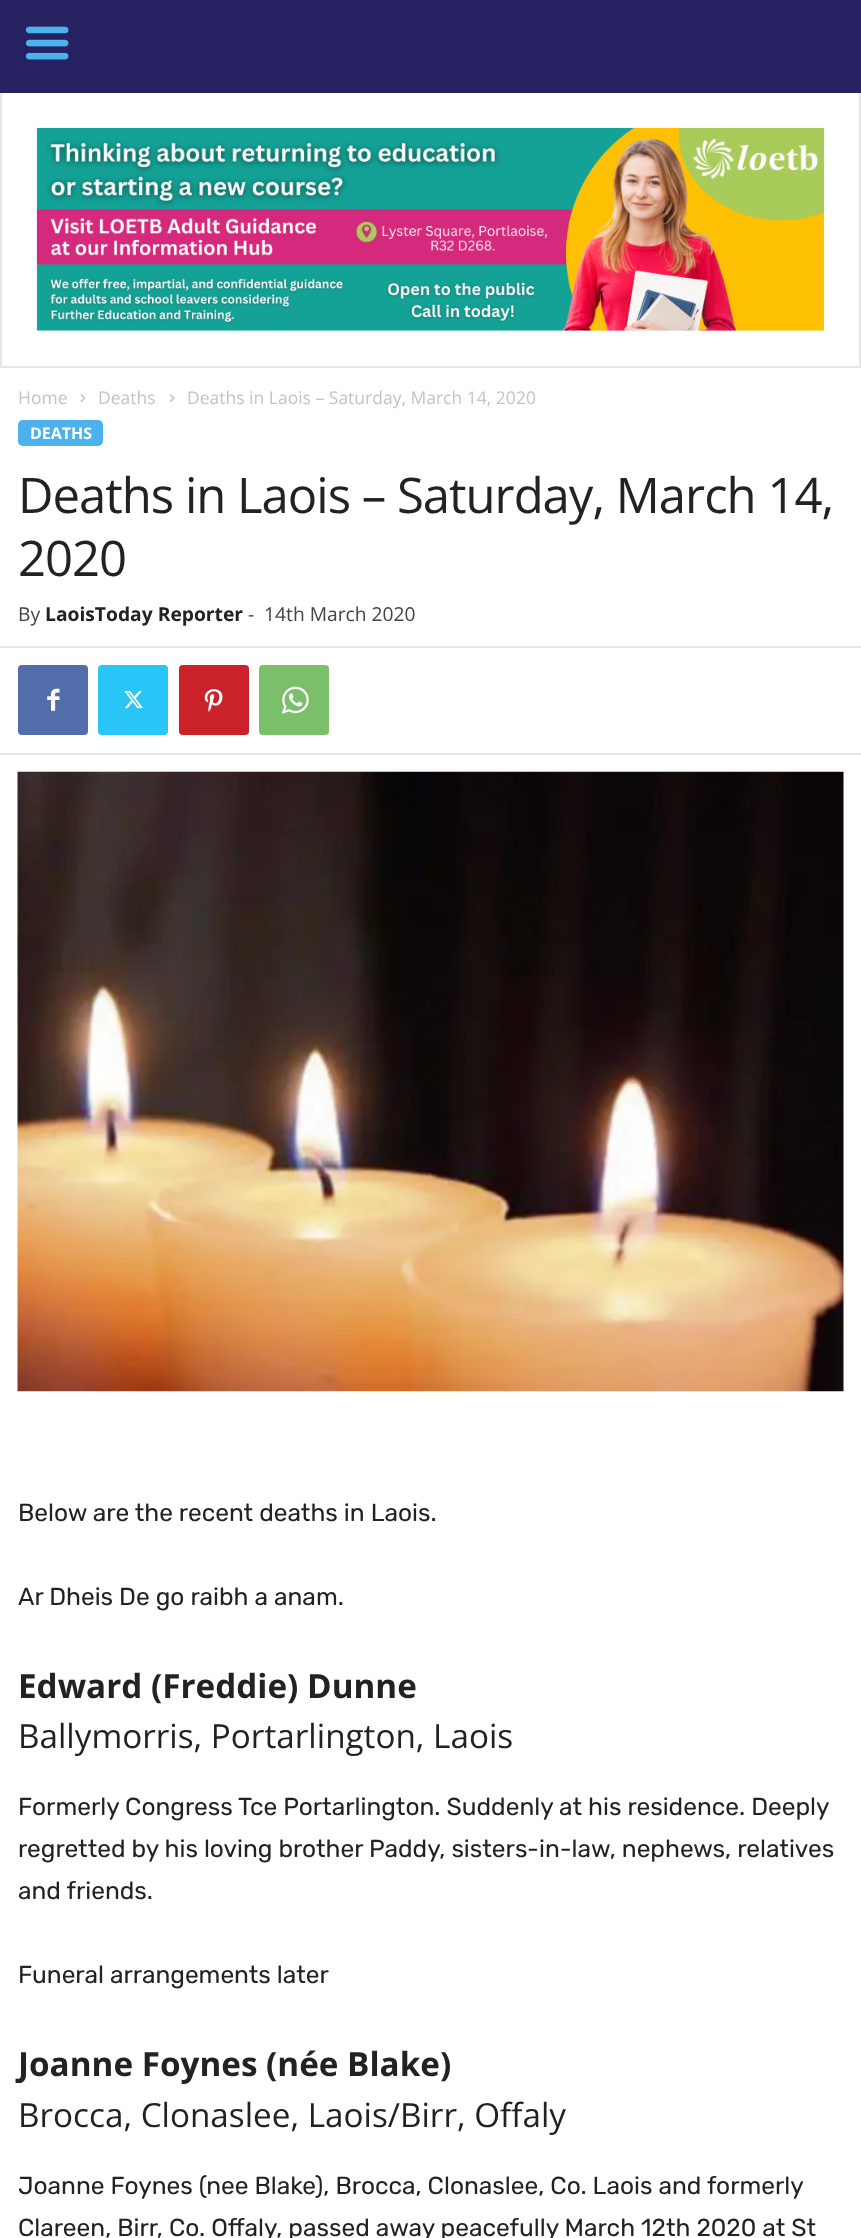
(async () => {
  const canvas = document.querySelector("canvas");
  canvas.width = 861;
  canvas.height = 2238;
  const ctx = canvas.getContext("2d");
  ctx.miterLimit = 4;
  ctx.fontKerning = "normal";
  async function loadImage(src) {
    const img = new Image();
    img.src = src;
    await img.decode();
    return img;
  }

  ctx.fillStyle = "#ffffff";
  ctx.fillRect(0, 0, 861, 2238);
  ctx.fillStyle = "#262262";
  ctx.fillRect(0, 0, 861, 93);
  ctx.drawImage(await loadImage("img/1.png"), 25, 26, 44, 34);
  for (const [x, y, w, h, color] of [
    [859, 93, 2, 275, "#e6e6e6"],
    [0, 366, 861, 2, "#e6e6e6"],
    [0, 93, 2, 275, "#e6e6e6"],
  ]) {
    ctx.fillStyle = color;
    ctx.fillRect(x, y, w, h);
  }
  ctx.drawImage(await loadImage("img/2.png"), 36, 127, 789, 204);
  ctx.drawImage(await loadImage("img/3.png"), 80, 394, 6, 9);
  ctx.drawImage(await loadImage("img/4.png"), 169, 394, 6, 9);
  ctx.fillStyle = "#4db2ec";
  ctx.beginPath();
  ctx.roundRect(18, 420, 85, 26, 5);
  ctx.fill();
  ctx.fillStyle = "#e6e6e6";
  ctx.fillRect(0, 646, 861, 2);
  ctx.fillStyle = "#516eab";
  ctx.beginPath();
  ctx.roundRect(18, 665, 70, 70, 4);
  ctx.fill();
  ctx.drawImage(await loadImage("img/5.png"), 47, 688, 13, 23);
  ctx.fillStyle = "#29c5f6";
  ctx.beginPath();
  ctx.roundRect(98, 665, 70, 70, 4);
  ctx.fill();
  ctx.drawImage(await loadImage("img/6.png"), 124, 691, 19, 18);
  ctx.fillStyle = "#ca212a";
  ctx.beginPath();
  ctx.roundRect(179, 665, 70, 70, 4);
  ctx.fill();
  ctx.drawImage(await loadImage("img/7.png"), 204, 689, 19, 23);
  ctx.fillStyle = "#7bbf6a";
  ctx.beginPath();
  ctx.roundRect(259, 665, 70, 70, 4);
  ctx.fill();
  ctx.drawImage(await loadImage("img/8.png"), 281, 686, 28, 28);
  ctx.fillStyle = "#e6e6e6";
  ctx.fillRect(0, 753, 861, 2);
  ctx.drawImage(await loadImage("img/9.png"), 17, 771, 827, 621);
  ctx.font = "17.5px Open Sans";
  ctx.fillStyle = "#c3c3c3";
  for (const [text, x, y] of [
    ["Home", 18, 404],
    ["Deaths", 98, 404],
    ["Deaths in Laois – Saturday, March 14, 2020", 187, 404],
  ]) {
    ctx.fillText(text, x, y);
  }
  ctx.font = "bold 16px Open Sans";
  ctx.fillStyle = "#ffffff";
  ctx.fillText("DEATHS", 30, 439);
  ctx.letterSpacing = "-1px";
  ctx.font = "49px Open Sans";
  ctx.fillStyle = "#222222";
  ctx.fillText("Deaths in Laois – Saturday, March 14,", 18, 513);
  ctx.fillText("2020", 18, 576);
  ctx.letterSpacing = "0px";
  ctx.font = "19.25px Open Sans";
  ctx.fillStyle = "#444444";
  ctx.fillText("By", 18, 621);
  ctx.font = "bold 19.25px Open Sans";
  ctx.fillStyle = "#222222";
  ctx.fillText("LaoisToday Reporter", 45, 621);
  ctx.font = "19.25px Open Sans";
  ctx.fillStyle = "#444444";
  ctx.fillText("-", 248, 621);
  ctx.fillText("14th March 2020", 264, 621);
  ctx.font = "24.5px Rubik";
  ctx.fillStyle = "#222222";
  ctx.fillText("Below are the recent deaths in Laois.", 18, 1521);
  ctx.fillText("Ar Dheis De go raibh a anam.", 18, 1605);
  ctx.font = "bold 33.25px Open Sans";
  ctx.fillText("Edward (Freddie) Dunne", 18, 1698);
  ctx.font = "33.25px Open Sans";
  ctx.fillText("Ballymorris, Portarlington, Laois", 18, 1748);
  ctx.font = "24.5px Rubik";
  for (const [text, x, y] of [
    ["Formerly Congress Tce Portarlington. Suddenly at his residence. Deeply", 18, 1815],
    ["regretted by his loving brother Paddy, sisters-in-law, nephews, relatives", 18, 1857],
    ["and friends.", 18, 1899],
    ["Funeral arrangements later", 18, 1983],
  ]) {
    ctx.fillText(text, x, y);
  }
  ctx.font = "bold 33.25px Open Sans";
  ctx.fillText("Joanne Foynes (née Blake)", 18, 2076);
  ctx.font = "33.25px Open Sans";
  ctx.fillText("Brocca, Clonaslee, Laois/Birr, Offaly", 18, 2127);
  ctx.font = "24.5px Rubik";
  ctx.fillText("Joanne Foynes (nee Blake), Brocca, Clonaslee, Co. Laois and formerly", 18, 2194);
  ctx.fillText("Clareen, Birr, Co. Offaly, passed away peacefully March 12th 2020 at St", 18, 2236);
})();
